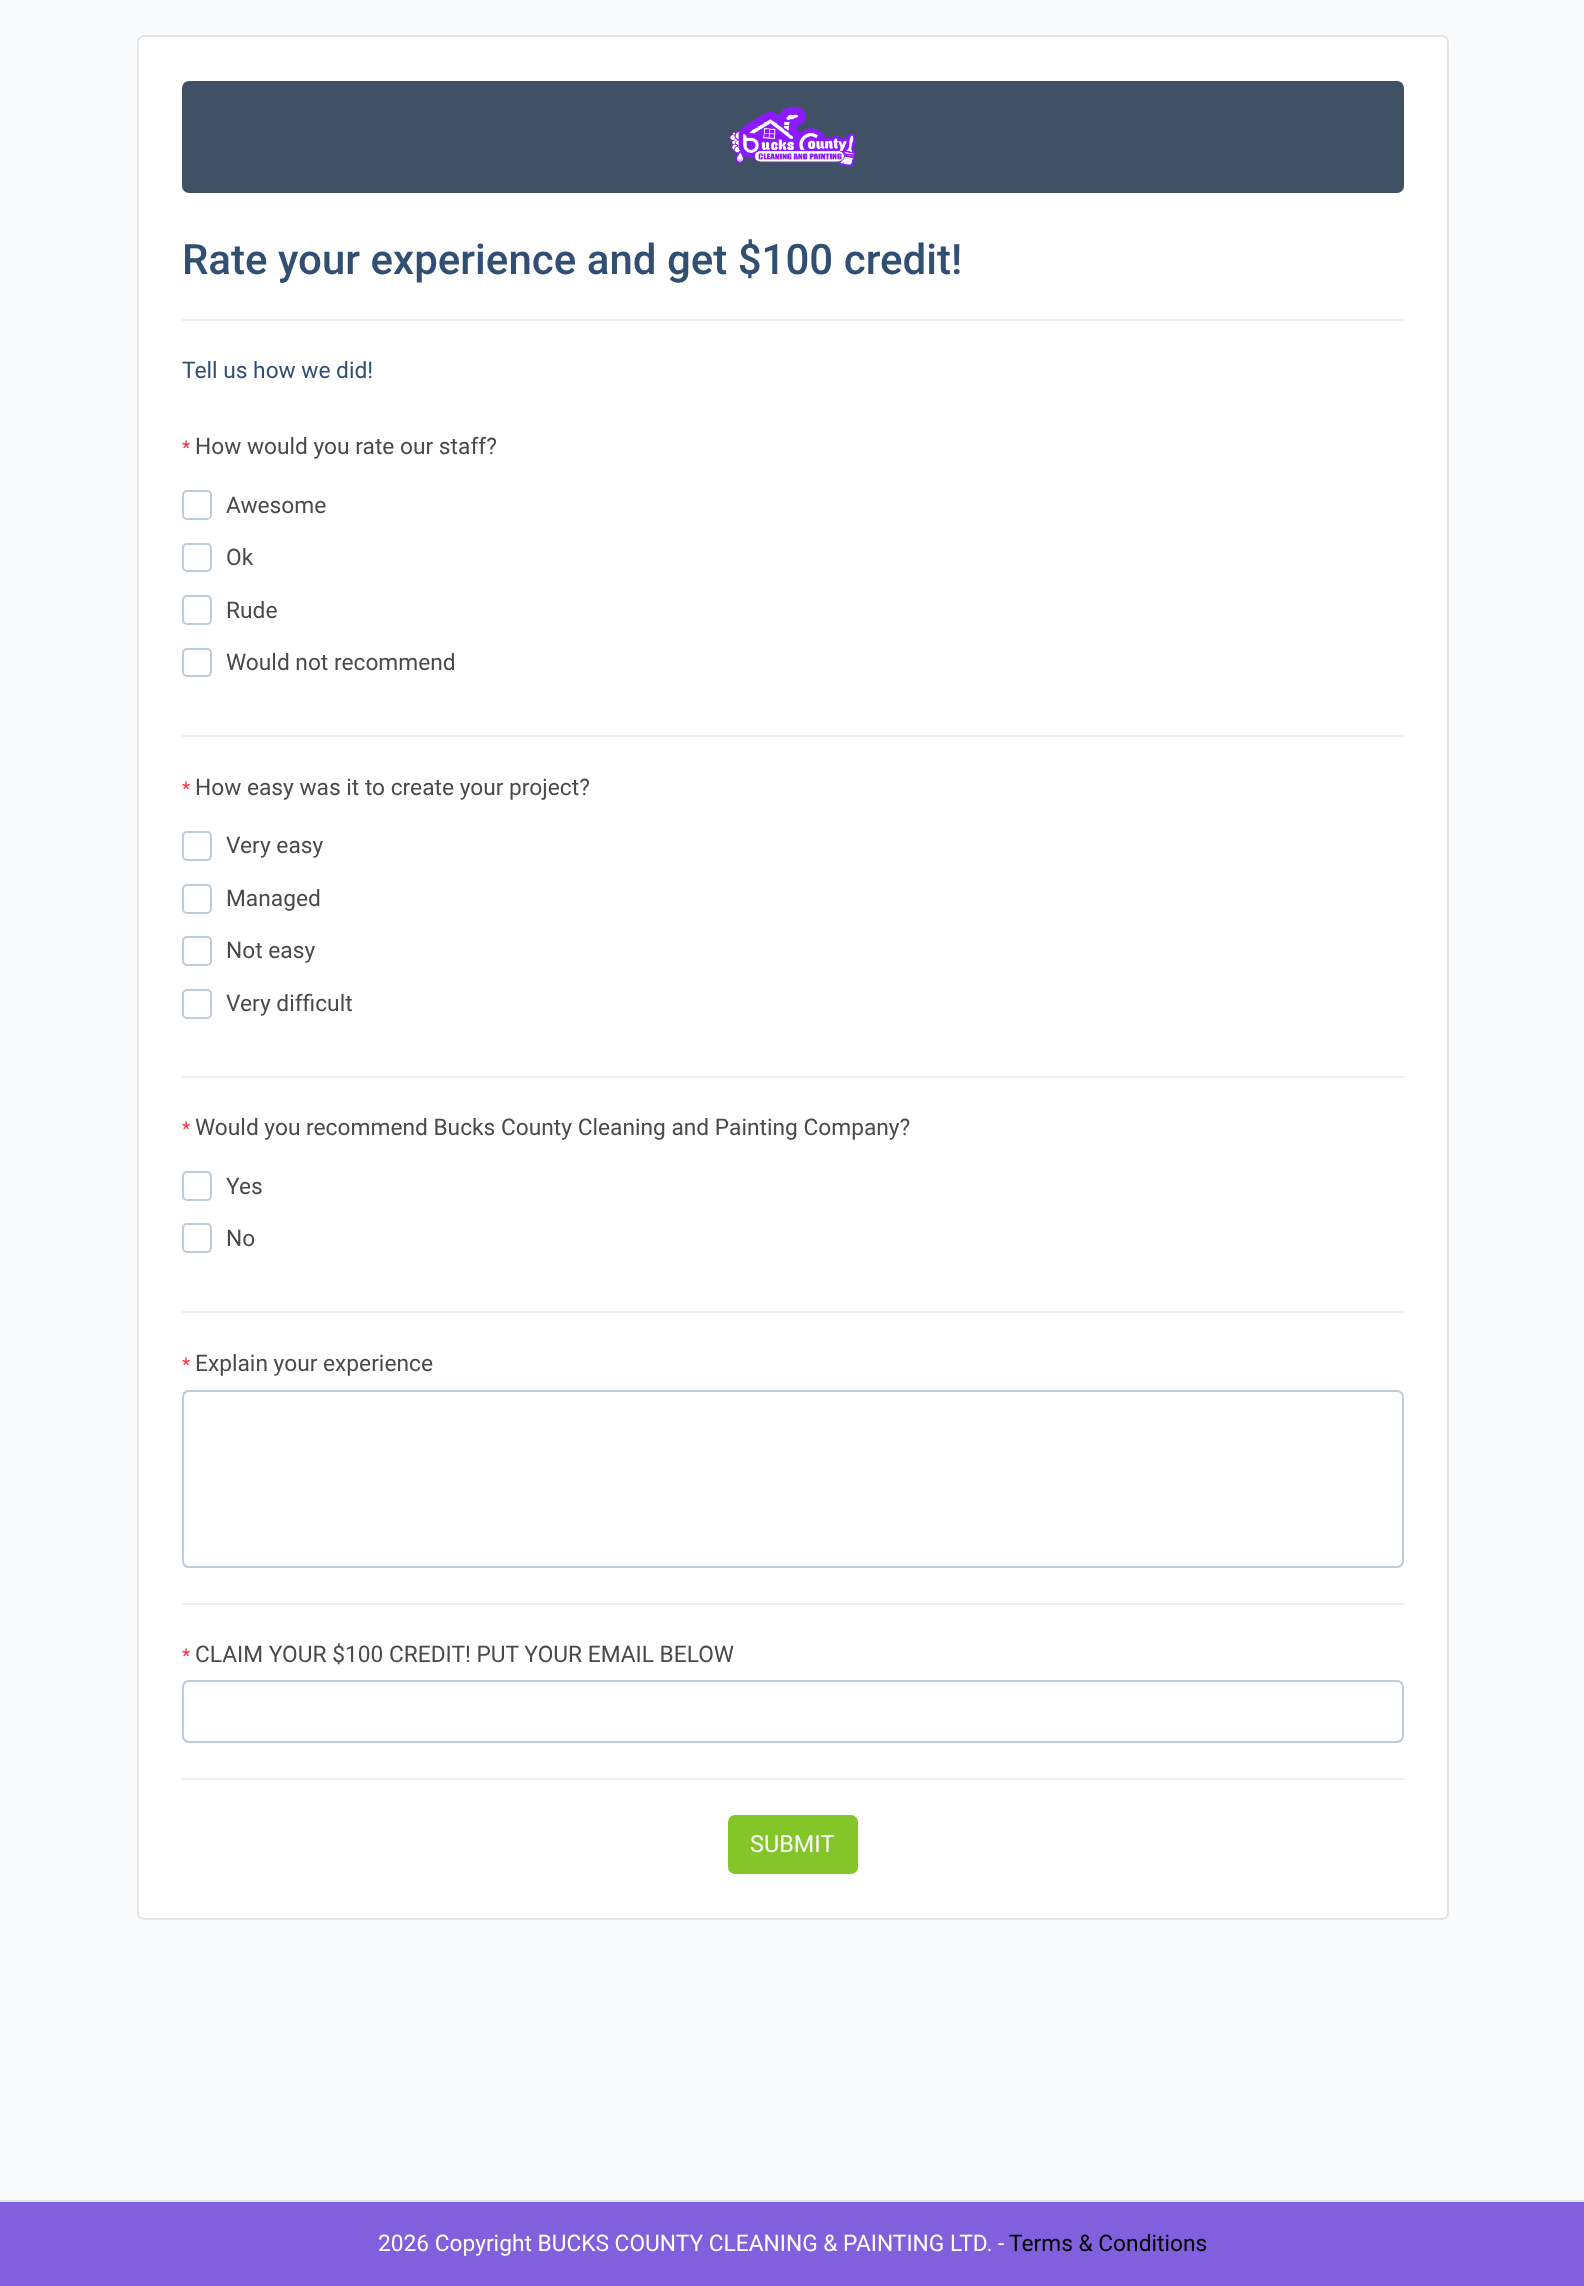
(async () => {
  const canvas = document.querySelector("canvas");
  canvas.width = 1584;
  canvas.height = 2286;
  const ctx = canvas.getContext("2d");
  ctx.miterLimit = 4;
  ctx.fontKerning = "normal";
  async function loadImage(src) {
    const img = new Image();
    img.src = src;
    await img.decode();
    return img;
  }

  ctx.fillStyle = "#f9fafb";
  ctx.fillRect(0, 0, 1584, 2286);
  ctx.fillStyle = "#ffffff";
  ctx.beginPath();
  ctx.roundRect(138, 36, 1310, 1883, 6);
  ctx.fill();
  ctx.strokeStyle = "#e4e5e7";
  ctx.lineWidth = 2;
  ctx.stroke();
  ctx.fillStyle = "#415165";
  ctx.beginPath();
  ctx.roundRect(182, 81, 1222, 112, 7);
  ctx.fill();
  ctx.drawImage(await loadImage("img/1.png"), 729, 106, 127, 61);
  ctx.fillStyle = "#eeeeee";
  ctx.fillRect(182, 319, 1222, 2);
  ctx.beginPath();
  ctx.roundRect(183, 491, 28, 28, 4);
  ctx.strokeStyle = "#bfcbd9";
  ctx.stroke();
  ctx.beginPath();
  ctx.roundRect(183, 544, 28, 27, 4);
  ctx.stroke();
  ctx.beginPath();
  ctx.roundRect(183, 596, 28, 28, 4);
  ctx.stroke();
  ctx.beginPath();
  ctx.roundRect(183, 649, 28, 27, 4);
  ctx.stroke();
  ctx.fillRect(182, 735, 1222, 2);
  ctx.beginPath();
  ctx.roundRect(183, 832, 28, 28, 4);
  ctx.stroke();
  ctx.beginPath();
  ctx.roundRect(183, 885, 28, 28, 4);
  ctx.stroke();
  ctx.beginPath();
  ctx.roundRect(183, 937, 28, 28, 4);
  ctx.stroke();
  ctx.beginPath();
  ctx.roundRect(183, 990, 28, 28, 4);
  ctx.stroke();
  ctx.fillRect(182, 1076, 1222, 2);
  ctx.beginPath();
  ctx.roundRect(183, 1172, 28, 28, 4);
  ctx.stroke();
  ctx.beginPath();
  ctx.roundRect(183, 1224, 28, 28, 4);
  ctx.stroke();
  ctx.fillRect(182, 1311, 1222, 2);
  ctx.beginPath();
  ctx.roundRect(183, 1391, 1220, 176, 6);
  ctx.stroke();
  ctx.fillRect(182, 1603, 1222, 2);
  ctx.beginPath();
  ctx.roundRect(183, 1681, 1220, 61, 6);
  ctx.stroke();
  ctx.fillRect(182, 1778, 1222, 2);
  ctx.fillStyle = "#84c529";
  ctx.beginPath();
  ctx.roundRect(728, 1815, 130, 59, 7);
  ctx.fill();
  ctx.fillStyle = "#8160de";
  ctx.fillRect(0, 2202, 1584, 84);
  ctx.fillStyle = "#e4e5e7";
  ctx.fillRect(0, 2200, 1584, 2);
  ctx.font = "500 42px Roboto";
  ctx.fillStyle = "#314e73";
  ctx.fillText("Rate your experience and get $100 credit!", 182, 274);
  ctx.font = "22.75px Roboto";
  ctx.fillText("Tell us how we did!", 182, 378);
  ctx.font = "19px Roboto";
  ctx.fillStyle = "#fc2d42";
  ctx.fillText("*", 182, 454);
  ctx.font = "22.75px Roboto";
  ctx.fillStyle = "#4a4a4a";
  for (const [text, x, y] of [
    ["How would you rate our staff?", 195, 454],
    ["Awesome", 226, 513],
    ["Ok", 226, 565],
    ["Rude", 226, 618],
    ["Would not recommend", 226, 670],
  ]) {
    ctx.fillText(text, x, y);
  }
  ctx.font = "19px Roboto";
  ctx.fillStyle = "#fc2d42";
  ctx.fillText("*", 182, 795);
  ctx.font = "22.75px Roboto";
  ctx.fillStyle = "#4a4a4a";
  for (const [text, x, y] of [
    ["How easy was it to create your project?", 195, 795],
    ["Very easy", 226, 853],
    ["Managed", 226, 906],
    ["Not easy", 226, 958],
    ["Very difficult", 226, 1011],
  ]) {
    ctx.fillText(text, x, y);
  }
  ctx.font = "19px Roboto";
  ctx.fillStyle = "#fc2d42";
  ctx.fillText("*", 182, 1135);
  ctx.font = "22.75px Roboto";
  ctx.fillStyle = "#4a4a4a";
  for (const [text, x, y] of [
    ["Would you recommend Bucks County Cleaning and Painting Company?", 195, 1135],
    ["Yes", 226, 1194],
    ["No", 226, 1246],
  ]) {
    ctx.fillText(text, x, y);
  }
  ctx.font = "19px Roboto";
  ctx.fillStyle = "#fc2d42";
  ctx.fillText("*", 182, 1371);
  ctx.font = "22.75px Roboto";
  ctx.fillStyle = "#4a4a4a";
  ctx.fillText("Explain your experience", 195, 1371);
  ctx.font = "19px Roboto";
  ctx.fillStyle = "#fc2d42";
  ctx.fillText("*", 182, 1662);
  ctx.font = "22.75px Roboto";
  ctx.fillStyle = "#4a4a4a";
  ctx.fillText("CLAIM YOUR $100 CREDIT! PUT YOUR EMAIL BELOW", 195, 1662);
  ctx.font = "23.5px Roboto";
  ctx.fillStyle = "#ffffff";
  ctx.fillText("SUBMIT", 750, 1852);
  ctx.font = "22.75px Roboto";
  ctx.fillText("2026 Copyright BUCKS COUNTY CLEANING & PAINTING LTD. -", 378, 2251);
  ctx.fillStyle = "#000000";
  ctx.fillText("Terms & Conditions", 1009, 2251);
})();
